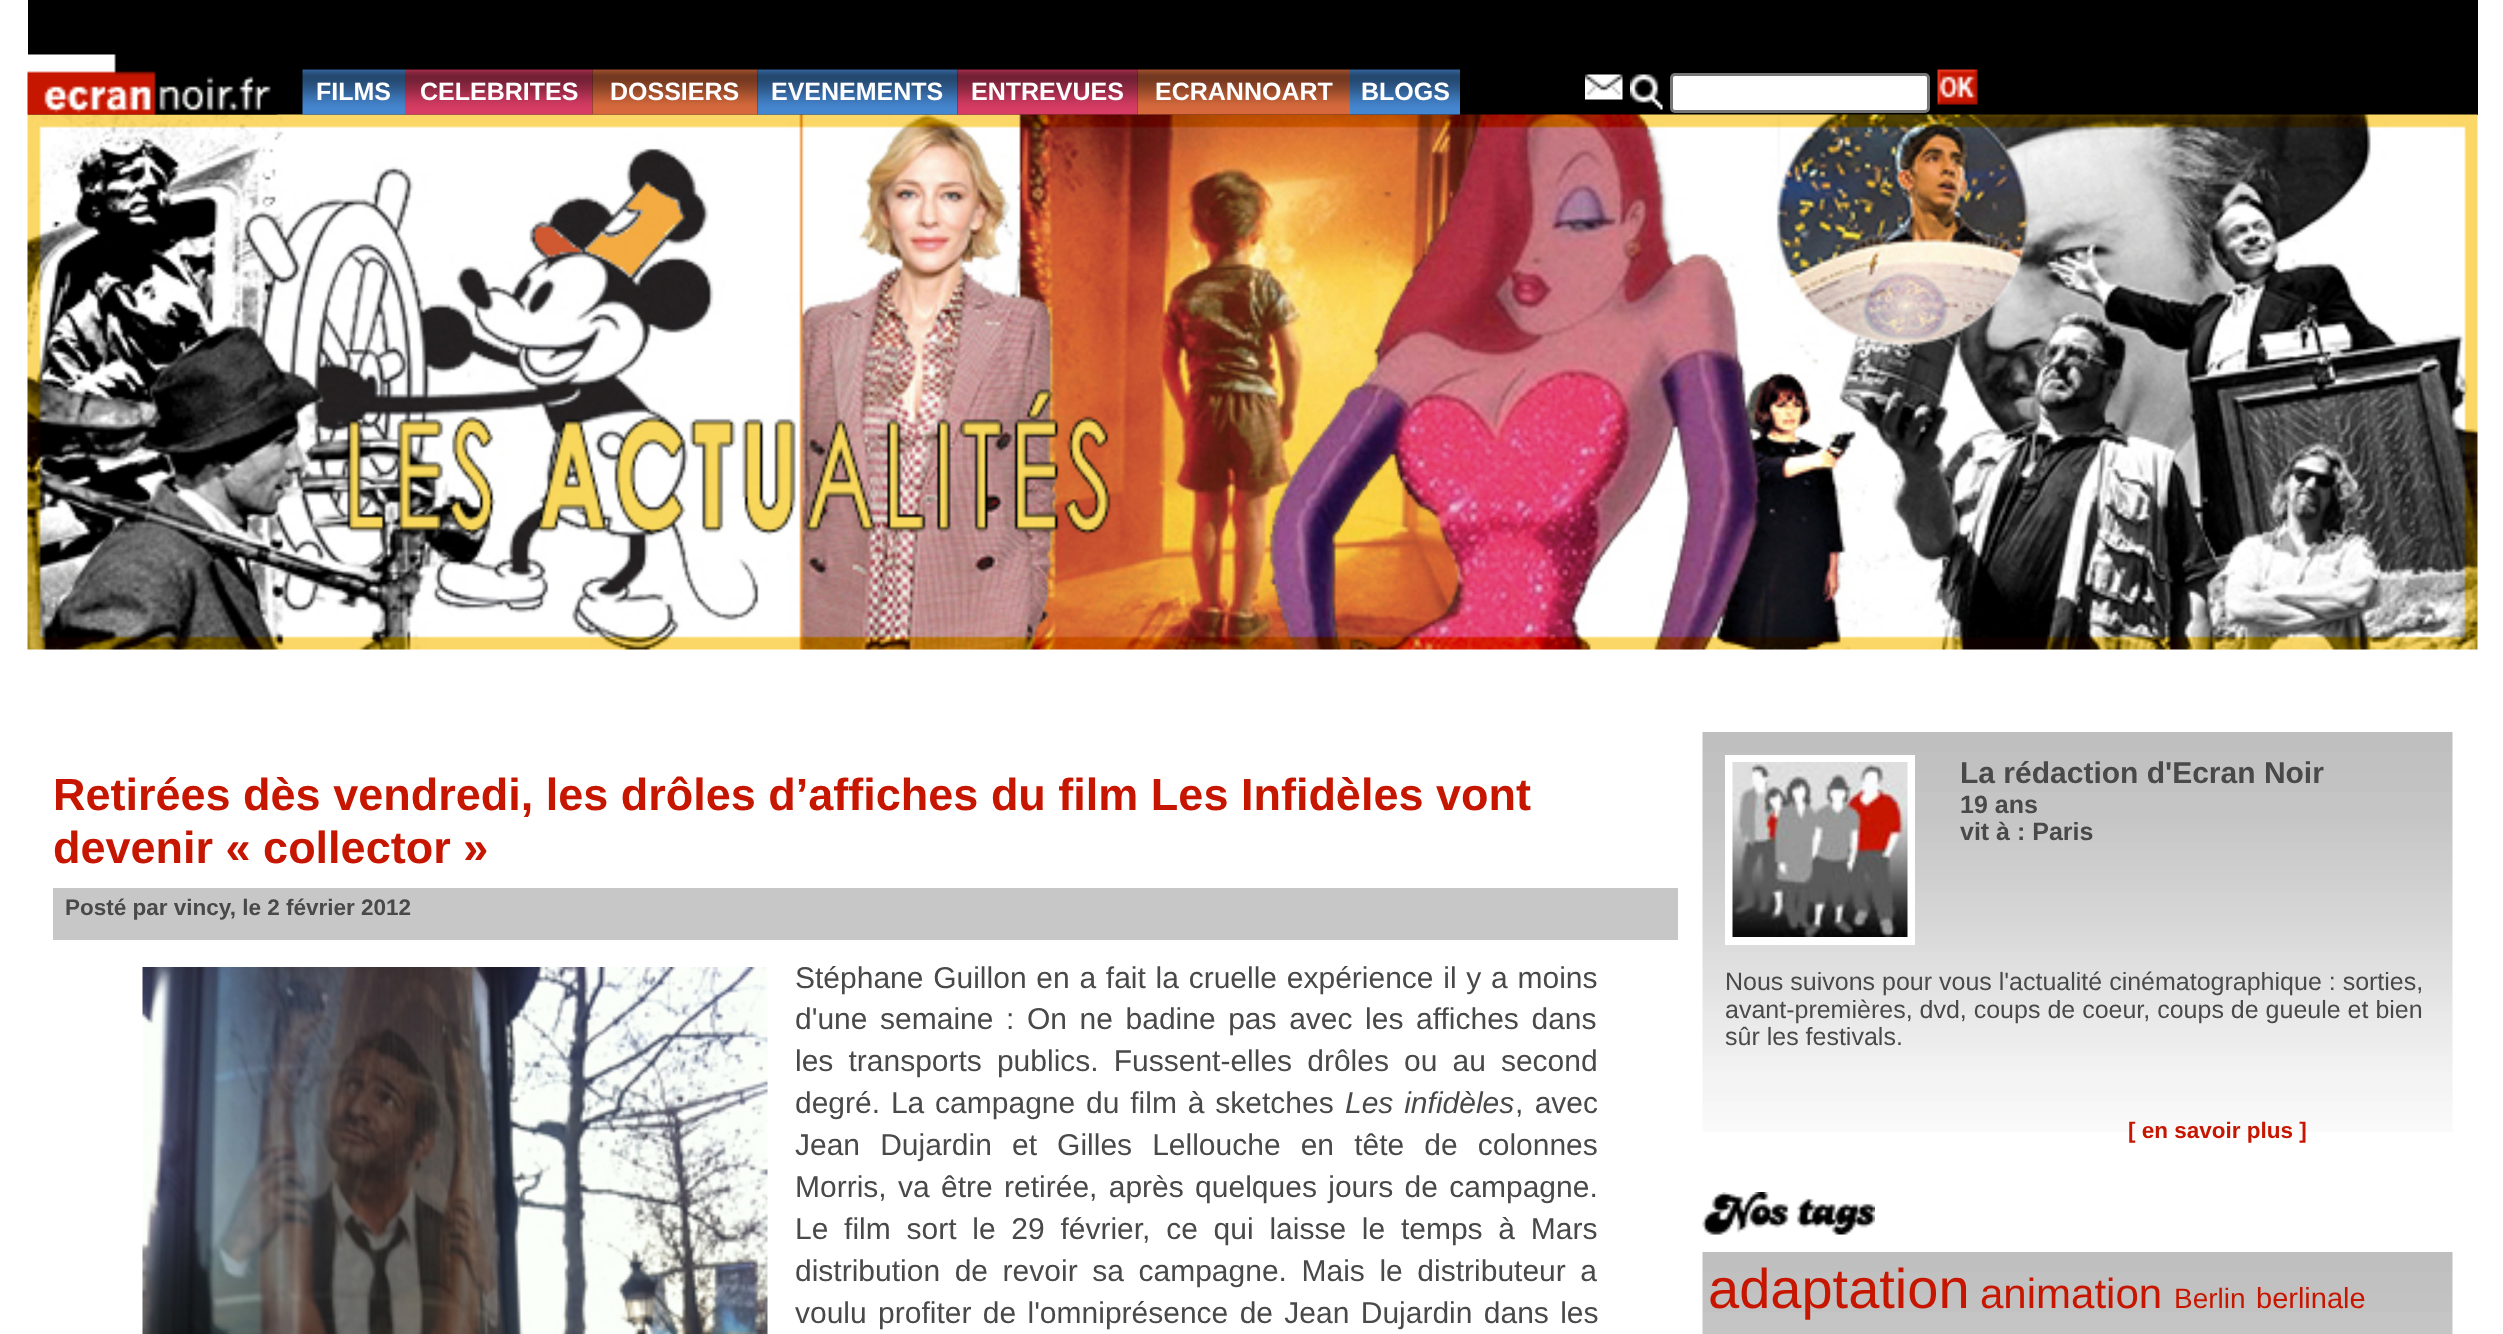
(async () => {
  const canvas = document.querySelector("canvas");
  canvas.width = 2503;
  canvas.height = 1334;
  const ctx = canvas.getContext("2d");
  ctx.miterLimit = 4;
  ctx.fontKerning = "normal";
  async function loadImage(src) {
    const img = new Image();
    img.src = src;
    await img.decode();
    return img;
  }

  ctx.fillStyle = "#ffffff";
  ctx.fillRect(0, 0, 2503, 1334);
  ctx.fillStyle = "#000000";
  ctx.fillRect(28, 0, 2450, 115);
  ctx.drawImage(await loadImage("img/12.png"), 27, 114, 2451, 536);
  ctx.drawImage(await loadImage("img/1.png"), 27, 54, 251, 61);
  ctx.drawImage(await loadImage("img/2.png"), 302, 69, 103, 46);
  ctx.drawImage(await loadImage("img/3.png"), 405, 69, 188, 46);
  ctx.drawImage(await loadImage("img/4.png"), 592, 69, 166, 46);
  ctx.drawImage(await loadImage("img/5.png"), 757, 69, 201, 46);
  ctx.drawImage(await loadImage("img/6.png"), 957, 69, 181, 46);
  ctx.drawImage(await loadImage("img/7.png"), 1137, 69, 213, 46);
  ctx.drawImage(await loadImage("img/8.png"), 1350, 69, 110, 46);
  ctx.drawImage(await loadImage("img/9.png"), 1585, 74, 38, 26);
  ctx.drawImage(await loadImage("img/10.png"), 1630, 74, 33, 36);
  ctx.fillStyle = "#ffffff";
  ctx.beginPath();
  ctx.roundRect(1671.5, 74.5, 257, 37, 3.5);
  ctx.fill();
  ctx.strokeStyle = "#767676";
  ctx.lineWidth = 3;
  ctx.stroke();
  ctx.drawImage(await loadImage("img/11.png"), 1937, 69, 41, 36);
  ctx.fillStyle = "#c7c7c7";
  ctx.fillRect(53, 888, 1625, 52);
  ctx.drawImage(await loadImage("img/13.png"), 142, 967, 626, 367);
  ctx.drawImage(await loadImage("img/14.png"), 1702, 732, 751, 400);
  ctx.strokeStyle = "#ffffff";
  ctx.lineWidth = 8;
  ctx.strokeRect(1729, 759, 182, 182);
  ctx.drawImage(await loadImage("img/15.png"), 1732, 762, 176, 175);
  ctx.drawImage(await loadImage("img/16.png"), 1702, 1192, 173, 43);
  ctx.drawImage(await loadImage("img/17.png"), 1702, 1252, 751, 82);
  ctx.font = "bold 25px Liberation Sans";
  ctx.fillStyle = "#ffffff";
  for (const [text, x, y] of [
    ["FILMS", 316, 100],
    ["CELEBRITES", 420, 100],
    ["DOSSIERS", 610, 100],
    ["EVENEMENTS", 771, 100],
    ["ENTREVUES", 971, 100],
    ["ECRANNOART", 1155, 100],
    ["BLOGS", 1361, 100],
  ]) {
    ctx.fillText(text, x, y);
  }
  ctx.font = "bold 45px Liberation Sans";
  ctx.fillStyle = "#c71600";
  ctx.fillText("Retirées dès vendredi, les drôles d’affiches du film Les Infidèles vont", 53, 810);
  ctx.fillText("devenir « collector »", 53, 863);
  ctx.font = "bold 22.5px Liberation Sans";
  ctx.fillStyle = "#494949";
  ctx.fillText("Posté par vincy, le 2 février 2012", 65, 915);
  ctx.wordSpacing = "1.4px";
  ctx.font = "30px Liberation Sans";
  ctx.fillText("Stéphane Guillon en a fait la cruelle expérience il y a moins", 795, 988);
  ctx.wordSpacing = "4.25px";
  ctx.fillText("d'une semaine : On ne badine pas avec les affiches dans", 795, 1029);
  ctx.wordSpacing = "6.75px";
  ctx.fillText("les transports publics. Fussent-elles drôles ou au second", 795, 1071);
  ctx.wordSpacing = "2.5px";
  ctx.fillText("degré. La campagne du film à sketches", 795, 1113);
  ctx.font = "italic 30px Liberation Sans";
  ctx.fillText("Les infidèles", 1345, 1113);
  ctx.wordSpacing = "3px";
  ctx.font = "30px Liberation Sans";
  ctx.fillText(", avec", 1515, 1113);
  ctx.wordSpacing = "11.75px";
  ctx.fillText("Jean Dujardin et Gilles Lellouche en tête de colonnes", 795, 1155);
  ctx.wordSpacing = "3px";
  ctx.fillText("Morris, va être retirée, après quelques jours de campagne.", 795, 1197);
  ctx.wordSpacing = "7.4px";
  ctx.fillText("Le film sort le 29 février, ce qui laisse le temps à Mars", 795, 1239);
  ctx.wordSpacing = "6.25px";
  ctx.fillText("distribution de revoir sa campagne. Mais le distributeur a", 795, 1281);
  ctx.wordSpacing = "3px";
  ctx.fillText("voulu profiter de l'omniprésence de Jean Dujardin dans les", 795, 1323);
  ctx.wordSpacing = "0px";
  ctx.font = "bold 30px Liberation Sans";
  ctx.fillText("La rédaction d'Ecran Noir", 1960, 783);
  ctx.font = "bold 25px Liberation Sans";
  ctx.fillText("19 ans", 1960, 813);
  ctx.fillText("vit à : Paris", 1960, 840);
  ctx.font = "25px Liberation Sans";
  for (const [text, x, y] of [
    ["Nous suivons pour vous l'actualité cinématographique : sorties,", 1725, 990],
    ["avant-premières, dvd, coups de coeur, coups de gueule et bien", 1725, 1018],
    ["sûr les festivals.", 1725, 1045],
  ]) {
    ctx.fillText(text, x, y);
  }
  ctx.font = "bold 22.5px Liberation Sans";
  ctx.fillStyle = "#c71600";
  ctx.fillText("[ en savoir plus ]", 2128, 1138);
  ctx.font = "56px Liberation Sans";
  ctx.fillText("adaptation", 1708, 1308);
  ctx.font = "42px Liberation Sans";
  ctx.fillText("animation", 1980, 1308);
  ctx.font = "28px Liberation Sans";
  ctx.fillText("Berlin", 2174, 1308);
  ctx.font = "29px Liberation Sans";
  ctx.fillText("berlinale", 2256, 1308);
})();
